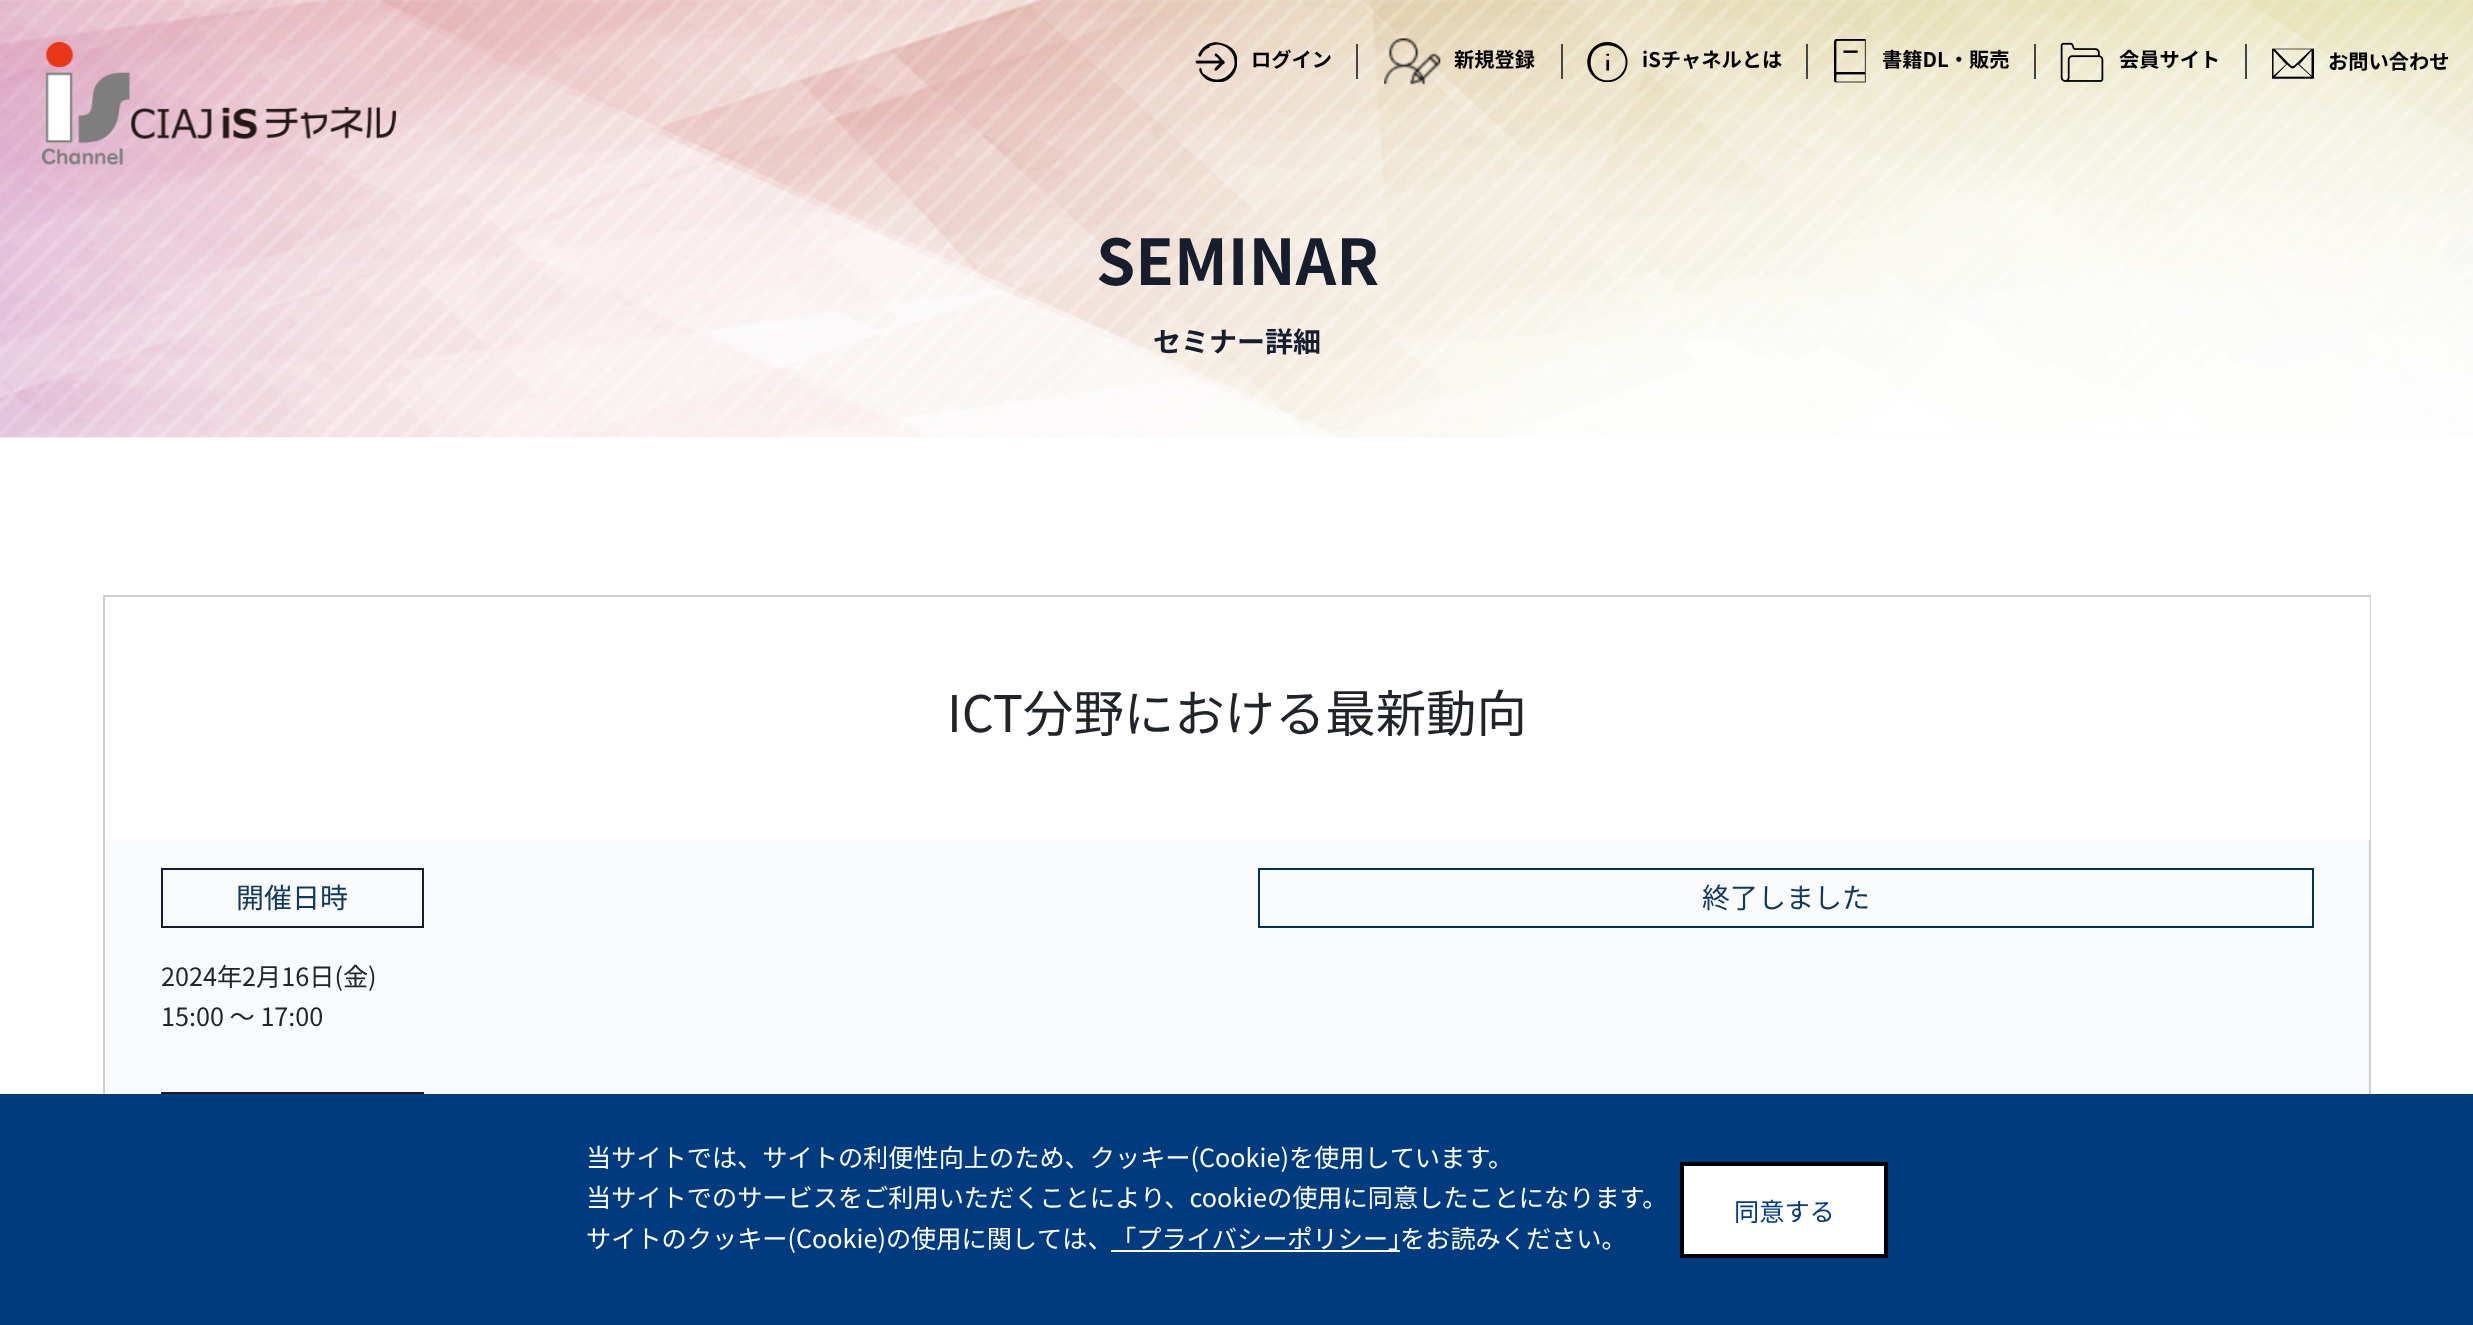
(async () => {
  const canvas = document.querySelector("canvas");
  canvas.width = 2473;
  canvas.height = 1325;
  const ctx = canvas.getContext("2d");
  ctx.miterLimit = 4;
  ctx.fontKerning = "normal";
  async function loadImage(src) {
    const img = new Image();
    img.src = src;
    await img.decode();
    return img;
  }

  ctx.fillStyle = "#ffffff";
  ctx.fillRect(0, 0, 2473, 1325);
  ctx.drawImage(await loadImage("img/8.png"), 0, 0, 2473, 438);
  ctx.drawImage(await loadImage("img/1.png"), 42, 42, 354, 123);
  ctx.drawImage(await loadImage("img/2.png"), 1195, 42, 42, 40);
  ctx.fillStyle = "#444444";
  ctx.fillRect(1356, 44, 2, 35);
  ctx.drawImage(await loadImage("img/3.png"), 1384, 38, 57, 47);
  ctx.fillRect(1561, 44, 2, 35);
  ctx.drawImage(await loadImage("img/4.png"), 1587, 42, 41, 40);
  ctx.fillRect(1806, 44, 2, 35);
  ctx.drawImage(await loadImage("img/5.png"), 1834, 39, 32, 44);
  ctx.fillRect(2034, 44, 2, 35);
  ctx.drawImage(await loadImage("img/6.png"), 2060, 42, 44, 40);
  ctx.fillRect(2245, 44, 2, 35);
  ctx.drawImage(await loadImage("img/7.png"), 2272, 48, 42, 31);
  ctx.fillStyle = "#f8fafc";
  ctx.fillRect(105, 840, 2264, 254);
  ctx.strokeStyle = "#ccced0";
  ctx.lineWidth = 2;
  ctx.strokeRect(104, 596, 2266, 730);
  ctx.fillStyle = "#ffffff";
  ctx.fillRect(2369, 597, 1, 243);
  ctx.strokeStyle = "#171d2c";
  ctx.strokeRect(162, 869, 261, 58);
  ctx.strokeRect(162, 1093, 261, 58);
  ctx.strokeStyle = "#00325c";
  ctx.strokeRect(1259, 869, 1054, 58);
  ctx.fillStyle = "#003b80";
  ctx.fillRect(0, 1094, 2473, 231);
  ctx.fillStyle = "#ffffff";
  ctx.fillRect(1111, 1250, 289, 2);
  ctx.beginPath();
  ctx.rect(1682, 1164, 204, 92);
  ctx.fill();
  ctx.strokeStyle = "#000000";
  ctx.lineWidth = 4;
  ctx.stroke();
  ctx.font = "bold 20.25px Noto Sans JP";
  ctx.fillStyle = "#000000";
  for (const [text, x, y] of [
    ["ログイン", 1251, 67],
    ["新規登録", 1454, 67],
    ["iSチャネルとは", 1642, 67],
    ["書籍DL・販売", 1882, 67],
    ["会員サイト", 2119, 67],
    ["お問い合わせ", 2328, 69],
  ]) {
    ctx.fillText(text, x, y);
  }
  ctx.font = "bold 63px Noto Sans JP";
  ctx.fillStyle = "#171d2c";
  ctx.fillText("SEMINAR", 1096, 285);
  ctx.font = "bold 28px Noto Sans JP";
  ctx.fillText("セミナー詳細", 1153, 352);
  ctx.font = "50.4px Noto Sans JP";
  ctx.fillStyle = "#212529";
  ctx.fillText("ICT分野における最新動向", 947, 732);
  ctx.font = "28px Noto Sans JP";
  ctx.fillStyle = "#11395b";
  ctx.fillText("開催日時", 236, 908);
  ctx.font = "25.2px Noto Sans JP";
  ctx.fillStyle = "#212529";
  ctx.fillText("2024年2月16日(金)", 161, 986);
  ctx.fillText("15:00 ～ 17:00", 161, 1026);
  ctx.font = "28px Noto Sans JP";
  ctx.fillStyle = "#11395b";
  ctx.fillText("終了しました", 1702, 908);
  ctx.font = "25.2px Noto Sans JP";
  ctx.fillStyle = "#ffffff";
  for (const [text, x, y] of [
    ["当サイトでは、サイトの利便性向上のため、クッキー(Cookie)を使用しています。", 586, 1167],
    ["当サイトでのサービスをご利用いただくことにより、cookieの使用に同意したことになります。", 586, 1207],
    ["サイトのクッキー(Cookie)の使用に関しては、", 586, 1248],
    ["「プライバシーポリシー」", 1111, 1248],
    ["をお読みください。", 1400, 1248],
  ]) {
    ctx.fillText(text, x, y);
  }
  ctx.fillStyle = "#003b80";
  ctx.fillText("同意する", 1734, 1221);
})();
